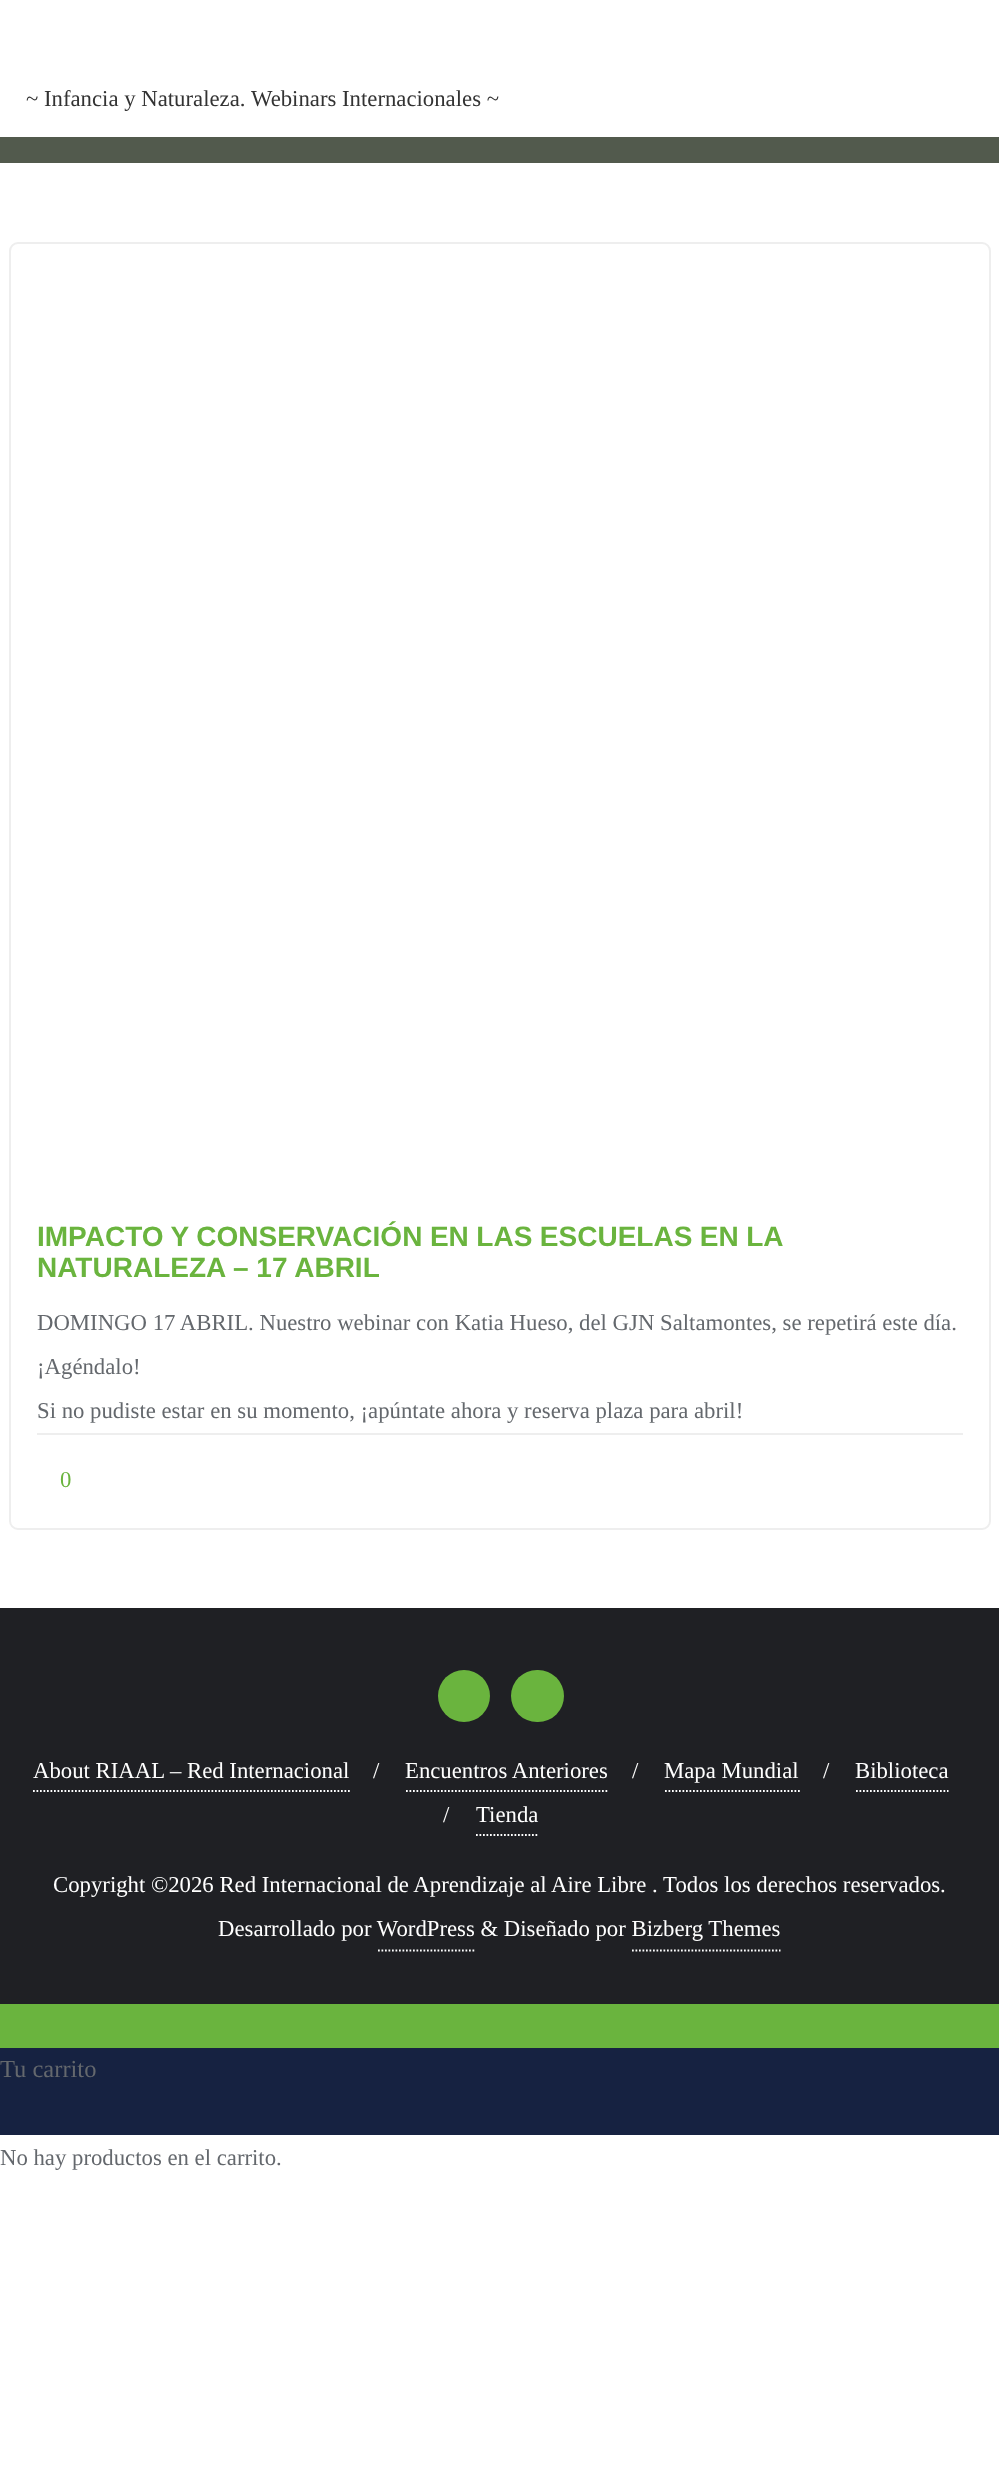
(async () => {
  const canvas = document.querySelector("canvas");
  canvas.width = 999;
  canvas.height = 2487;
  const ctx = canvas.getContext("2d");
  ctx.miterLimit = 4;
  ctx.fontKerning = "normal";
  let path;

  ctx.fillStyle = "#ffffff";
  ctx.fillRect(0, 0, 999, 2487);
  ctx.fillStyle = "#525a4d";
  ctx.fillRect(0, 137, 999, 26);
  ctx.beginPath();
  ctx.roundRect(10, 243, 980, 1286, 8);
  ctx.strokeStyle = "#eeeeee";
  ctx.lineWidth = 2;
  ctx.stroke();
  ctx.fillStyle = "#eeeeee";
  ctx.fillRect(37, 1433, 926, 2);
  ctx.fillStyle = "#1f2024";
  ctx.fillRect(0, 1608, 999, 396);
  ctx.fillStyle = "#6ab43e";
  ctx.beginPath();
  ctx.arc(464, 1696, 26, 0, Math.PI * 2);
  ctx.fill();
  ctx.beginPath();
  ctx.roundRect(511, 1670, 53, 52, 26);
  ctx.fill();
  path = new Path2D("M33 1791H350");
  ctx.strokeStyle = "#ffffff";
  ctx.lineWidth = 1.8;
  ctx.setLineDash([1.75, 1.75]);
  ctx.stroke(path);
  path = new Path2D("M406 1791H609");
  ctx.stroke(path);
  path = new Path2D("M665 1791H800");
  ctx.stroke(path);
  path = new Path2D("M856 1791H948.5");
  ctx.stroke(path);
  path = new Path2D("M476 1835H539");
  ctx.stroke(path);
  path = new Path2D("M378 1950.5H476");
  ctx.stroke(path);
  path = new Path2D("M632 1950.5H780.5");
  ctx.stroke(path);
  ctx.fillRect(0, 2004, 999, 44);
  ctx.fillStyle = "#162241";
  ctx.fillRect(0, 2048, 999, 87);
  ctx.font = "22.75px Liberation Serif";
  ctx.fillStyle = "#333333";
  ctx.fillText("~ Infancia y Naturaleza.", 26, 106);
  ctx.fillText("Webinars Internacionales ~", 251, 106);
  ctx.wordSpacing = "-0.25px";
  ctx.font = "bold 28px Liberation Sans";
  ctx.fillStyle = "#6ab43e";
  ctx.fillText("IMPACTO Y CONSERVACIÓN EN LAS ESCUELAS EN LA", 37, 1246);
  ctx.wordSpacing = "0px";
  ctx.fillText("NATURALEZA – 17 ABRIL", 37, 1277);
  ctx.font = "22.75px Liberation Serif";
  ctx.fillStyle = "#64686d";
  for (const [text, x, y] of [
    ["DOMINGO 17 ABRIL. Nuestro webinar con Katia Hueso, del GJN Saltamontes, se repetirá este día.", 37, 1330],
    ["¡Agéndalo!", 37, 1374],
    ["Si no pudiste estar en su momento, ¡apúntate ahora y reserva plaza para abril!", 37, 1418],
  ]) {
    ctx.fillText(text, x, y);
  }
  ctx.fillStyle = "#6ab43e";
  ctx.fillText("0", 60, 1487);
  ctx.fillStyle = "#ffffff";
  for (const [text, x, y] of [
    ["About RIAAL – Red Internacional", 33, 1778],
    ["/", 373, 1778],
    ["Encuentros Anteriores", 405, 1778],
    ["/", 632, 1778],
    ["Mapa Mundial", 664, 1778],
    ["/", 823, 1778],
    ["Biblioteca", 855, 1778],
    ["/", 443, 1822],
    ["Tienda", 476, 1822],
    ["Copyright ©2026 Red Internacional de Aprendizaje al Aire Libre . Todos los derechos reservados.", 53, 1892],
    ["Desarrollado por WordPress & Diseñado por Bizberg Themes", 218, 1936],
  ]) {
    ctx.fillText(text, x, y);
  }
  ctx.font = "24.5px Liberation Serif";
  ctx.fillStyle = "#64686d";
  ctx.fillText("Tu carrito", 0, 2077);
  ctx.font = "22.75px Liberation Serif";
  ctx.fillText("No hay productos en el carrito.", 0, 2165);
})();
